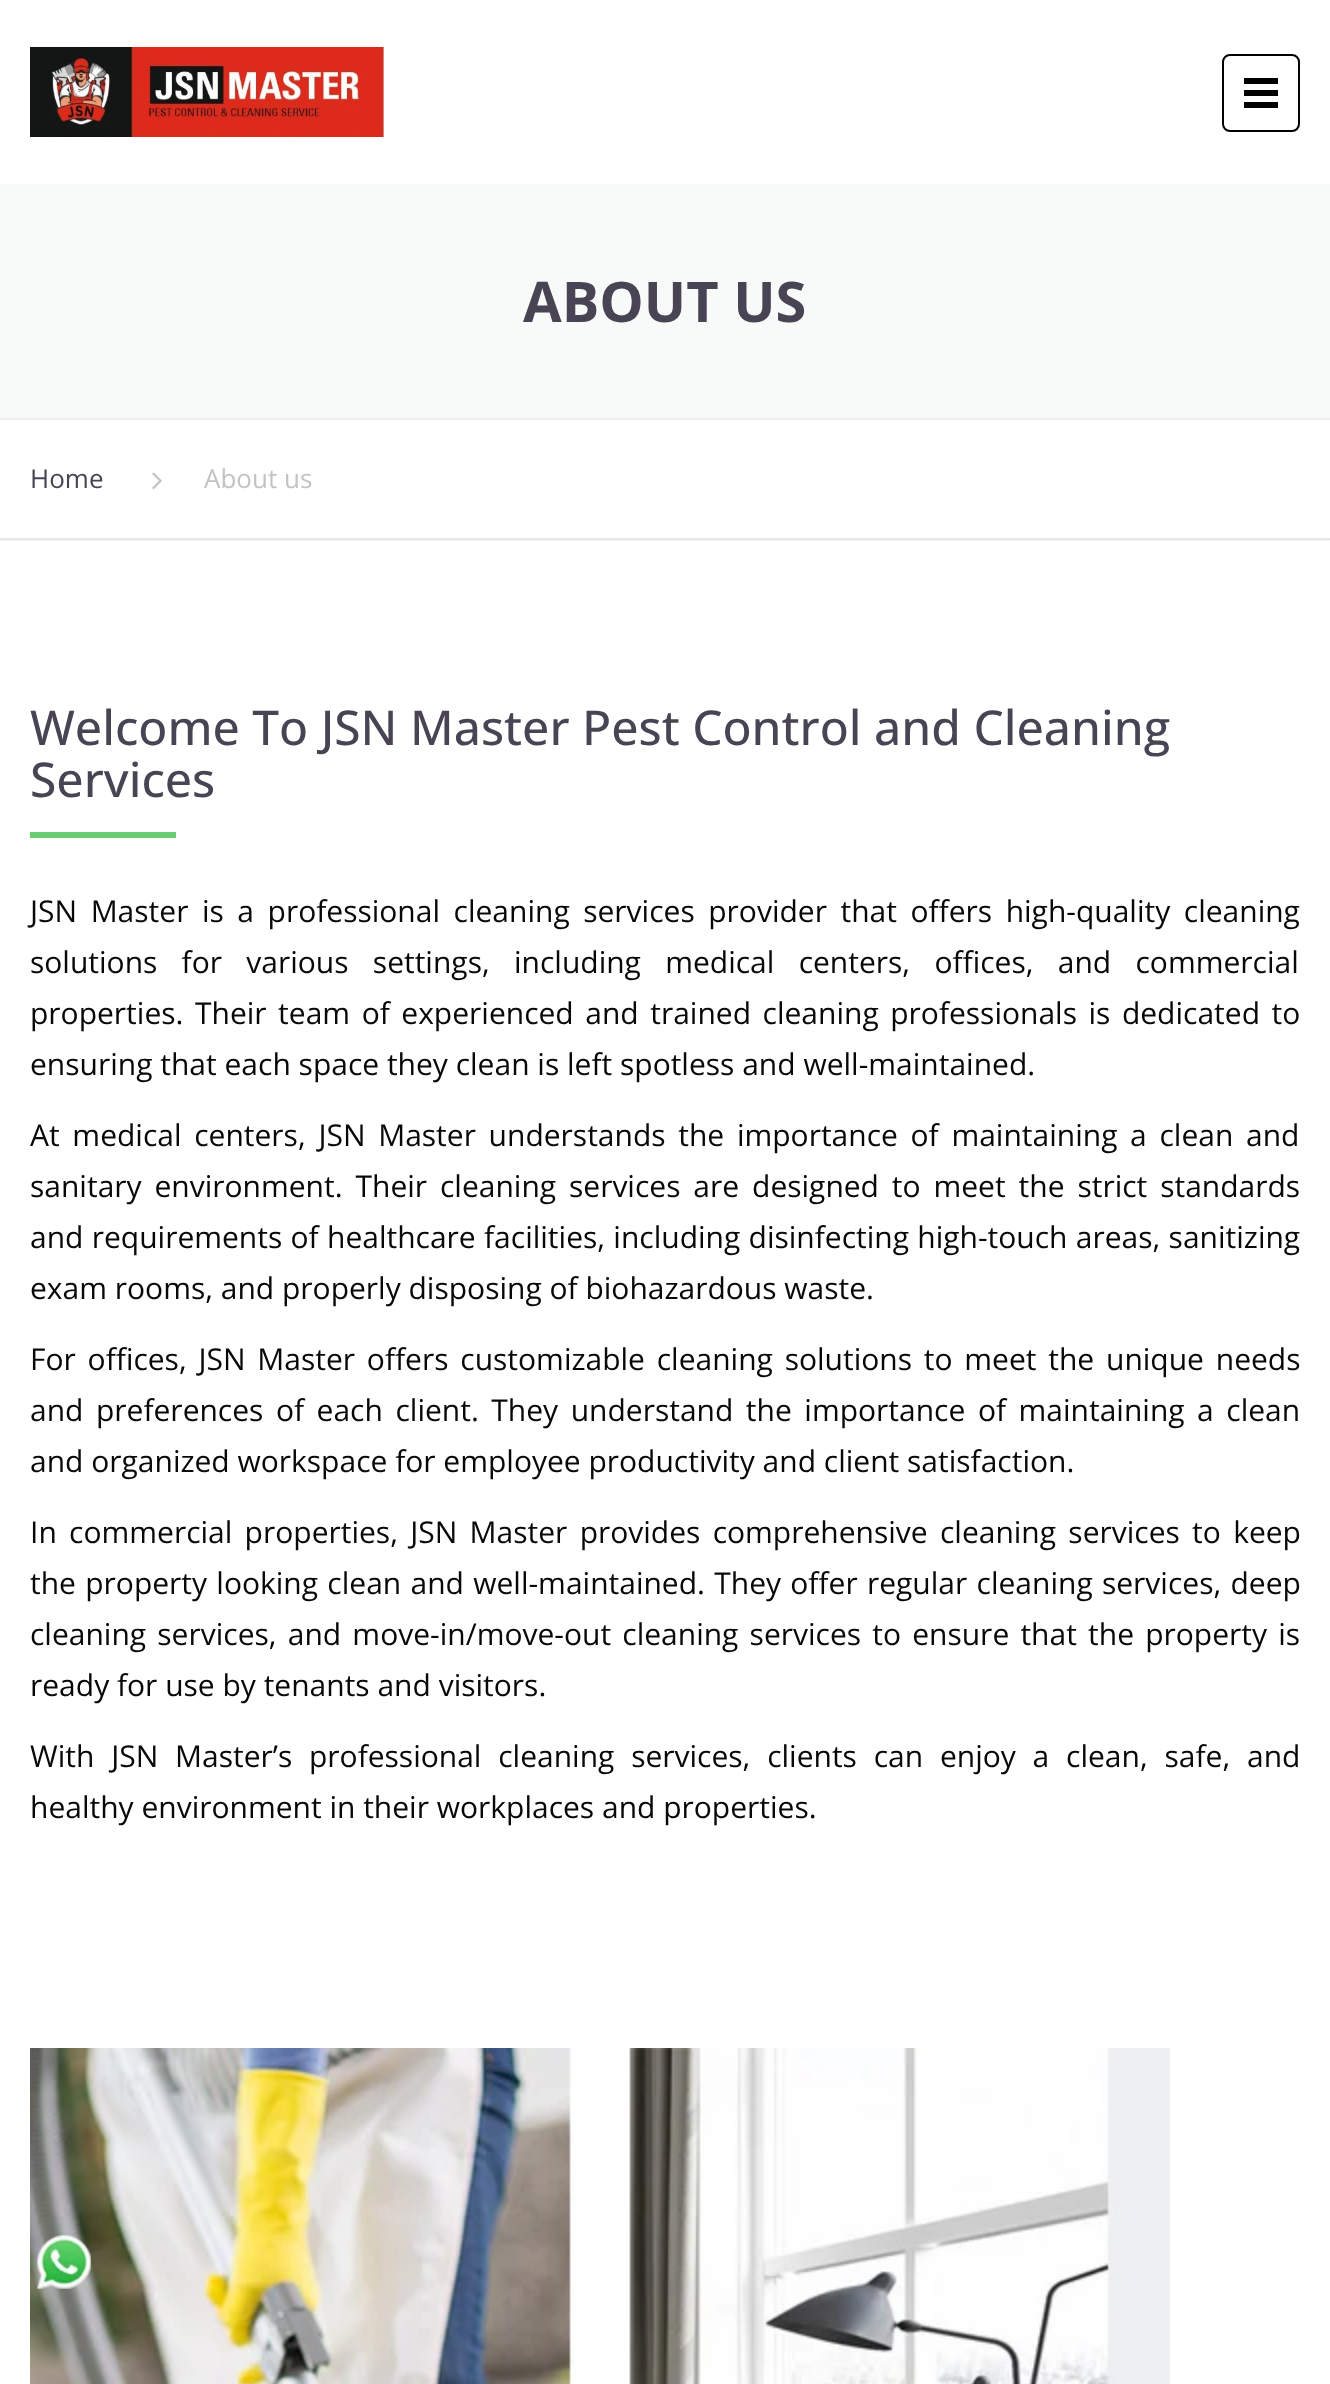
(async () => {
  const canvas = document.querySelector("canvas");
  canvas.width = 1330;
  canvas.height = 2384;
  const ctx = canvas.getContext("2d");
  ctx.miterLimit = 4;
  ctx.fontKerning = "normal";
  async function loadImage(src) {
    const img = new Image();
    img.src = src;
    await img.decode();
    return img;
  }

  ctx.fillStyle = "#ffffff";
  ctx.fillRect(0, 0, 1330, 2384);
  ctx.drawImage(await loadImage("img/1.png"), 30, 47, 354, 90);
  ctx.beginPath();
  ctx.roundRect(1223, 55, 76, 76, 7);
  ctx.strokeStyle = "#000000";
  ctx.lineWidth = 2;
  ctx.stroke();
  for (const [x, y, w, h, color] of [
    [1244, 78, 34, 6, "#000000"],
    [1244, 90, 34, 6, "#000000"],
    [1244, 102, 34, 6, "#000000"],
  ]) {
    ctx.fillStyle = color;
    ctx.fillRect(x, y, w, h);
  }
  ctx.save();
  ctx.beginPath();
  ctx.rect(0, 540, 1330, 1);
  ctx.clip();
  ctx.fillStyle = "rgba(0, 0, 0, 0.14)";
  ctx.filter = "blur(1px)";
  ctx.beginPath();
  ctx.rect(0, 420, 1330, 120);
  ctx.fill();
  ctx.filter = "none";
  ctx.restore();
  for (const [x, y, w, h, color] of [
    [0, 184, 1330, 234, "#f8f9f9"],
    [0, 418, 1330, 2, "#eeeeee"],
    [0, 538, 1330, 2, "#e7e7e7"],
  ]) {
    ctx.fillStyle = color;
    ctx.fillRect(x, y, w, h);
  }
  ctx.drawImage(await loadImage("img/2.png"), 152, 472, 10, 18);
  ctx.fillStyle = "#69cd72";
  ctx.fillRect(30, 832, 146, 6);
  ctx.drawImage(await loadImage("img/3.png"), 30, 2048, 1140, 336);
  ctx.drawImage(await loadImage("img/4.png"), 37, 2235, 54, 54);
  ctx.font = "bold 56px Open Sans";
  ctx.fillStyle = "#484453";
  ctx.fillText("ABOUT US", 523, 322);
  ctx.font = "26px Open Sans";
  ctx.fillText("Home", 30, 488);
  ctx.fillStyle = "#c3c3c3";
  ctx.fillText("About us", 204, 488);
  ctx.font = "500 48px Open Sans";
  ctx.fillStyle = "#484453";
  ctx.fillText("Welcome To JSN Master Pest Control and Cleaning", 30, 745);
  ctx.fillText("Services", 30, 797);
  ctx.wordSpacing = "5.75px";
  ctx.font = "30px Open Sans";
  ctx.fillStyle = "#080808";
  ctx.fillText("JSN Master is a professional cleaning services provider that offers high-quality cleaning", 30, 922);
  ctx.wordSpacing = "16.5px";
  ctx.fillText("solutions for various settings, including medical centers, offices, and commercial", 30, 973);
  ctx.wordSpacing = "3.75px";
  ctx.fillText("properties. Their team of experienced and trained cleaning professionals is dedicated to", 30, 1024);
  ctx.wordSpacing = "0px";
  ctx.fillText("ensuring that each space they clean is left spotless and well-maintained.", 30, 1075);
  ctx.wordSpacing = "4.9px";
  ctx.fillText("At medical centers, JSN Master understands the importance of maintaining a clean and", 30, 1146);
  ctx.wordSpacing = "5.1px";
  ctx.fillText("sanitary environment. Their cleaning services are designed to meet the strict standards", 30, 1197);
  ctx.wordSpacing = "0.5px";
  ctx.fillText("and requirements of healthcare facilities, including disinfecting high-touch areas, sanitizing", 30, 1248);
  ctx.wordSpacing = "0px";
  ctx.fillText("exam rooms, and properly disposing of biohazardous waste.", 30, 1299);
  ctx.wordSpacing = "4px";
  ctx.fillText("For offices, JSN Master offers customizable cleaning solutions to meet the unique needs", 30, 1370);
  ctx.wordSpacing = "4.75px";
  ctx.fillText("and preferences of each client. They understand the importance of maintaining a clean", 30, 1421);
  ctx.wordSpacing = "0px";
  ctx.fillText("and organized workspace for employee productivity and client satisfaction.", 30, 1472);
  ctx.wordSpacing = "4.5px";
  ctx.fillText("In commercial properties, JSN Master provides comprehensive cleaning services to keep", 30, 1543);
  ctx.wordSpacing = "1.5px";
  ctx.fillText("the property looking clean and well-maintained. They offer regular cleaning services, deep", 30, 1594);
  ctx.wordSpacing = "3.4px";
  ctx.fillText("cleaning services, and move-in/move-out cleaning services to ensure that the property is", 30, 1645);
  ctx.wordSpacing = "0px";
  ctx.fillText("ready for use by tenants and visitors.", 30, 1696);
  ctx.wordSpacing = "9px";
  ctx.fillText("With JSN Master’s professional cleaning services, clients can enjoy a clean, safe, and", 30, 1767);
  ctx.wordSpacing = "0px";
  ctx.fillText("healthy environment in their workplaces and properties.", 30, 1818);
})();
